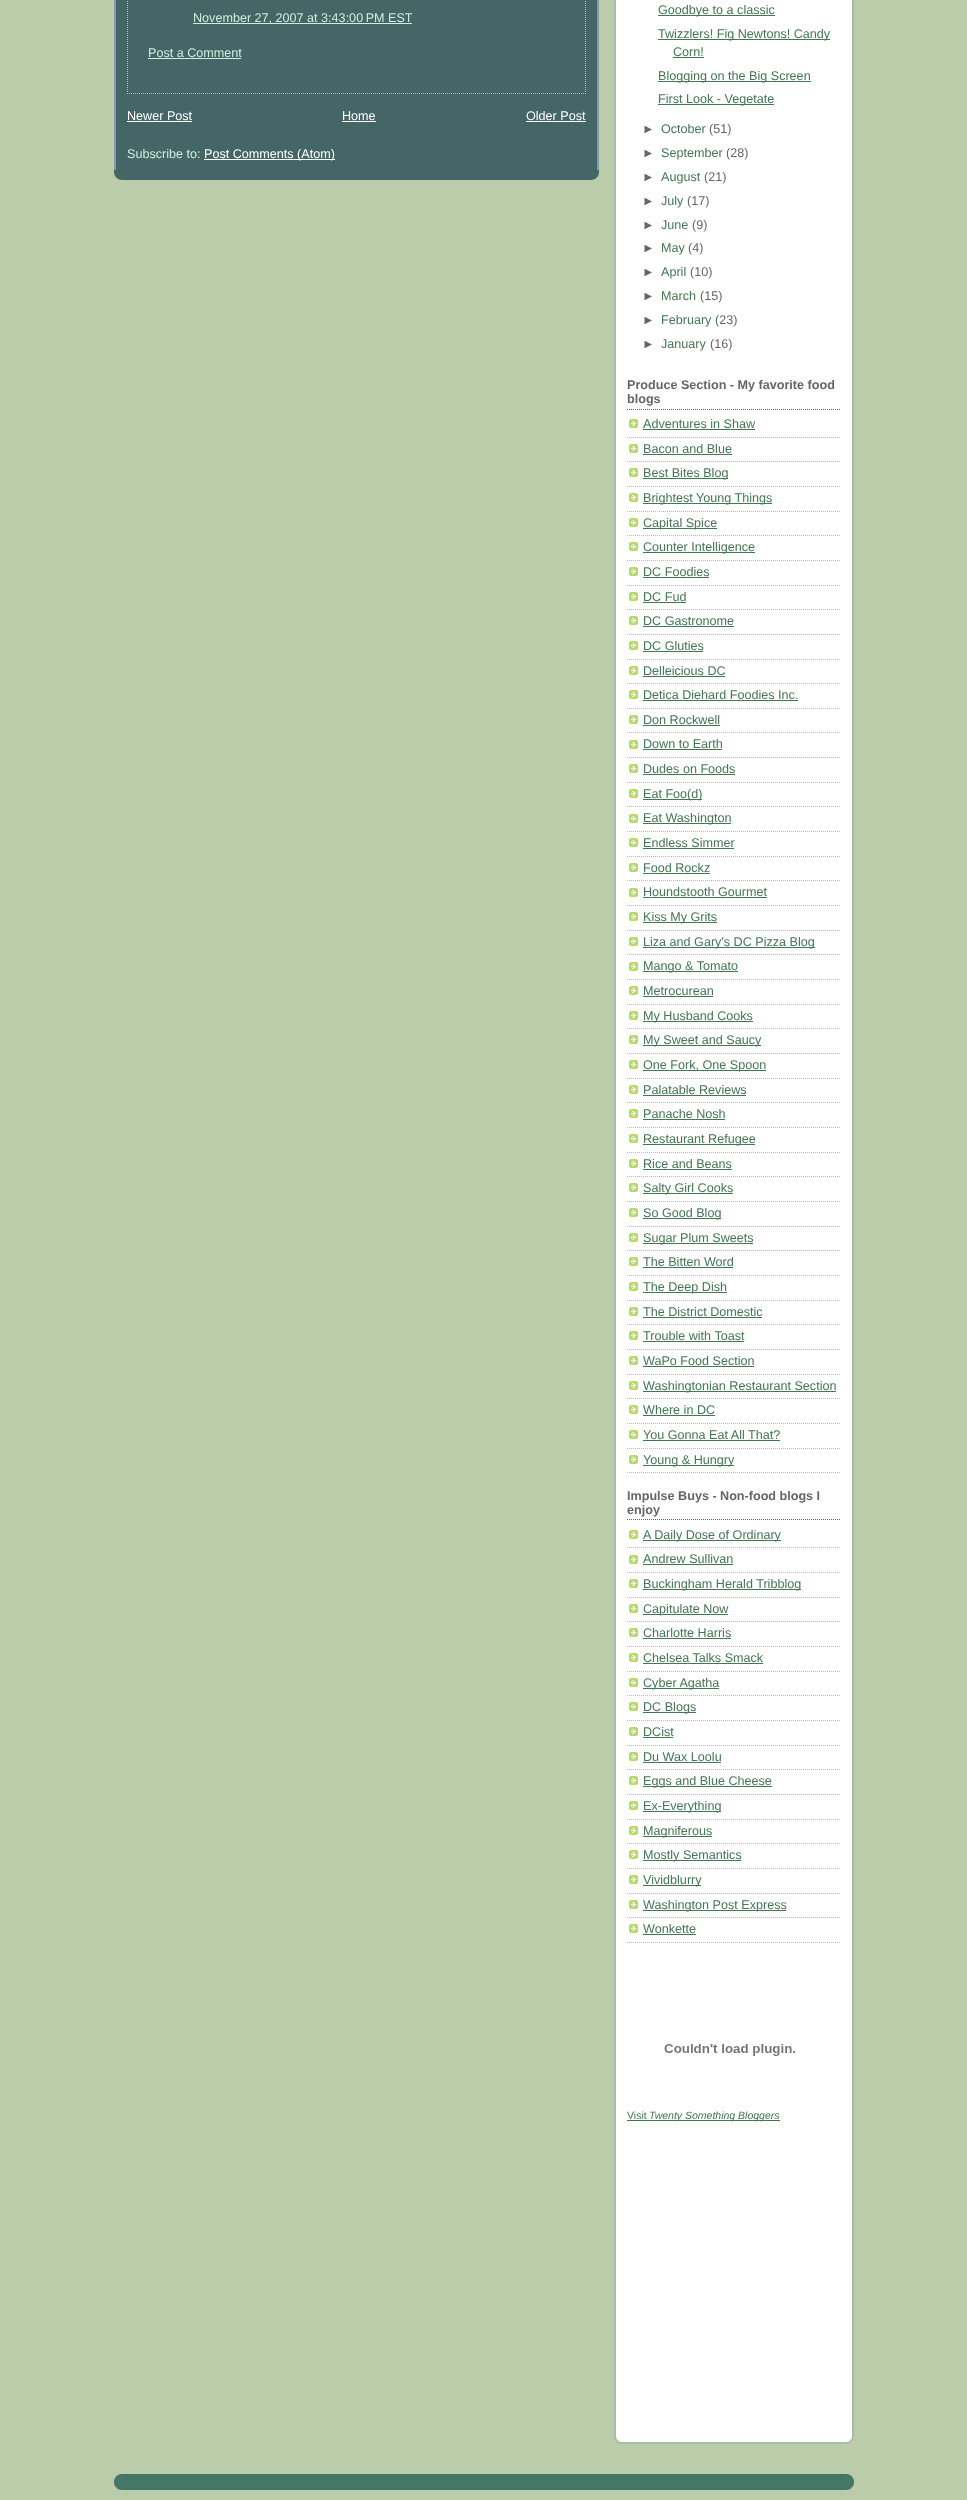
(async () => {
  const canvas = document.querySelector("canvas");
  canvas.width = 967;
  canvas.height = 2500;
  const ctx = canvas.getContext("2d");
  ctx.miterLimit = 4;
  ctx.fontKerning = "normal";
  async function loadImage(src) {
    const img = new Image();
    img.src = src;
    await img.decode();
    return img;
  }
  let path;

  ctx.fillStyle = "#bbccaa";
  ctx.fillRect(0, 0, 967, 2500);
  ctx.fillStyle = "#446666";
  ctx.fillRect(114, 0, 485, 180);
  ctx.drawImage(await loadImage("img/1.png"), 114, 172, 485, 8);
  ctx.drawImage(await loadImage("img/2.png"), 114, 0, 485, 170);
  path = new Path2D("M585.5-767V94");
  ctx.strokeStyle = "#bbbbbb";
  ctx.setLineDash([1, 1]);
  ctx.stroke(path);
  path = new Path2D("M127 93.5H586");
  ctx.stroke(path);
  path = new Path2D("M127.5-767V94");
  ctx.stroke(path);
  for (const [x, y, w, h, color] of [
    [193, 23, 219, 1, "#cceedd"],
    [148, 58, 93, 1, "#cceedd"],
    [127, 121, 65, 1, "#ffffff"],
    [342, 121, 34, 1, "#ffffff"],
    [526, 121, 60, 1, "#ffffff"],
    [204, 159, 131, 1, "#ffffff"],
    [616, 0, 236, 2442, "#ffffff"],
  ]) {
    ctx.fillStyle = color;
    ctx.fillRect(x, y, w, h);
  }
  ctx.drawImage(await loadImage("img/3.png"), 614, 2414, 240, 30);
  ctx.drawImage(await loadImage("img/4.png"), 614, 0, 240, 2414);
  for (const [x, y, w, h, color] of [
    [658, 15, 117, 1, "#447755"],
    [658, 39, 172, 1, "#447755"],
    [673, 57, 31, 1, "#447755"],
    [658, 81, 153, 1, "#447755"],
    [658, 104, 116, 1, "#447755"],
  ]) {
    ctx.fillStyle = color;
    ctx.fillRect(x, y, w, h);
  }
  path = new Path2D("M627 409.5H841");
  ctx.strokeStyle = "#666666";
  ctx.stroke(path);
  ctx.drawImage(await loadImage("img/5.png"), 629, 419, 9, 9);
  path = new Path2D("M627 437.5H841");
  ctx.strokeStyle = "#bbbbbb";
  ctx.stroke(path);
  ctx.fillRect(643, 429, 112, 1);
  ctx.drawImage(await loadImage("img/5.png"), 629, 444, 9, 9);
  path = new Path2D("M627 461.5H841");
  ctx.stroke(path);
  ctx.fillRect(643, 454, 89, 1);
  ctx.drawImage(await loadImage("img/5.png"), 629, 468, 9, 9);
  path = new Path2D("M627 486.5H841");
  ctx.stroke(path);
  ctx.fillRect(643, 478, 85, 1);
  ctx.drawImage(await loadImage("img/5.png"), 629, 493, 9, 9);
  path = new Path2D("M627 511.5H841");
  ctx.stroke(path);
  ctx.fillRect(643, 503, 129, 1);
  ctx.drawImage(await loadImage("img/5.png"), 629, 518, 9, 9);
  path = new Path2D("M627 535.5H841");
  ctx.stroke(path);
  ctx.fillRect(643, 528, 74, 1);
  ctx.drawImage(await loadImage("img/5.png"), 629, 542, 9, 9);
  path = new Path2D("M627 560.5H841");
  ctx.stroke(path);
  ctx.fillRect(643, 552, 112, 1);
  ctx.drawImage(await loadImage("img/5.png"), 629, 567, 9, 9);
  path = new Path2D("M627 585.5H841");
  ctx.stroke(path);
  ctx.fillRect(643, 577, 66, 1);
  ctx.drawImage(await loadImage("img/5.png"), 629, 592, 9, 9);
  path = new Path2D("M627 609.5H841");
  ctx.stroke(path);
  ctx.fillRect(643, 602, 43, 1);
  ctx.drawImage(await loadImage("img/5.png"), 629, 616, 9, 9);
  path = new Path2D("M627 634.5H841");
  ctx.stroke(path);
  ctx.fillRect(643, 626, 91, 1);
  ctx.drawImage(await loadImage("img/5.png"), 629, 641, 9, 9);
  path = new Path2D("M627 659.5H841");
  ctx.stroke(path);
  ctx.fillRect(643, 651, 60, 1);
  ctx.drawImage(await loadImage("img/5.png"), 629, 666, 9, 9);
  path = new Path2D("M627 683.5H841");
  ctx.stroke(path);
  ctx.fillRect(643, 676, 82, 1);
  ctx.drawImage(await loadImage("img/5.png"), 629, 690, 9, 9);
  path = new Path2D("M627 708.5H841");
  ctx.stroke(path);
  ctx.fillRect(643, 700, 155, 1);
  ctx.drawImage(await loadImage("img/5.png"), 629, 715, 9, 9);
  path = new Path2D("M627 732.5H841");
  ctx.stroke(path);
  ctx.fillRect(643, 725, 77, 1);
  ctx.drawImage(await loadImage("img/5.png"), 629, 740, 9, 9);
  path = new Path2D("M627 757.5H841");
  ctx.stroke(path);
  ctx.fillRect(643, 749, 79, 1);
  ctx.drawImage(await loadImage("img/5.png"), 629, 764, 9, 9);
  path = new Path2D("M627 782.5H841");
  ctx.stroke(path);
  ctx.fillRect(643, 774, 92, 1);
  ctx.drawImage(await loadImage("img/5.png"), 629, 789, 9, 9);
  path = new Path2D("M627 806.5H841");
  ctx.stroke(path);
  ctx.fillRect(643, 799, 59, 1);
  ctx.drawImage(await loadImage("img/5.png"), 629, 814, 9, 9);
  path = new Path2D("M627 831.5H841");
  ctx.stroke(path);
  ctx.fillRect(643, 823, 88, 1);
  ctx.drawImage(await loadImage("img/5.png"), 629, 838, 9, 9);
  path = new Path2D("M627 856.5H841");
  ctx.stroke(path);
  ctx.fillRect(643, 848, 91, 1);
  ctx.drawImage(await loadImage("img/5.png"), 629, 863, 9, 9);
  path = new Path2D("M627 880.5H841");
  ctx.stroke(path);
  ctx.fillRect(643, 873, 67, 1);
  ctx.drawImage(await loadImage("img/5.png"), 629, 888, 9, 9);
  path = new Path2D("M627 905.5H841");
  ctx.stroke(path);
  ctx.fillRect(643, 897, 124, 1);
  ctx.drawImage(await loadImage("img/5.png"), 629, 912, 9, 9);
  path = new Path2D("M627 930.5H841");
  ctx.stroke(path);
  ctx.fillRect(643, 922, 74, 1);
  ctx.drawImage(await loadImage("img/5.png"), 629, 937, 9, 9);
  path = new Path2D("M627 954.5H841");
  ctx.stroke(path);
  ctx.fillRect(643, 947, 172, 1);
  ctx.drawImage(await loadImage("img/5.png"), 629, 962, 9, 9);
  path = new Path2D("M627 979.5H841");
  ctx.stroke(path);
  ctx.fillRect(643, 971, 95, 1);
  ctx.drawImage(await loadImage("img/5.png"), 629, 986, 9, 9);
  path = new Path2D("M627 1004.5H841");
  ctx.stroke(path);
  ctx.fillRect(643, 996, 70, 1);
  ctx.drawImage(await loadImage("img/5.png"), 629, 1011, 9, 9);
  path = new Path2D("M627 1028.5H841");
  ctx.stroke(path);
  ctx.fillRect(643, 1021, 110, 1);
  ctx.drawImage(await loadImage("img/5.png"), 629, 1035, 9, 9);
  path = new Path2D("M627 1053.5H841");
  ctx.stroke(path);
  ctx.fillRect(643, 1045, 118, 1);
  ctx.drawImage(await loadImage("img/5.png"), 629, 1060, 9, 9);
  path = new Path2D("M627 1078.5H841");
  ctx.stroke(path);
  ctx.fillRect(643, 1070, 123, 1);
  ctx.drawImage(await loadImage("img/5.png"), 629, 1085, 9, 9);
  path = new Path2D("M627 1102.5H841");
  ctx.stroke(path);
  ctx.fillRect(643, 1095, 103, 1);
  ctx.drawImage(await loadImage("img/5.png"), 629, 1109, 9, 9);
  path = new Path2D("M627 1127.5H841");
  ctx.stroke(path);
  ctx.fillRect(643, 1119, 82, 1);
  ctx.drawImage(await loadImage("img/5.png"), 629, 1134, 9, 9);
  path = new Path2D("M627 1152.5H841");
  ctx.stroke(path);
  ctx.fillRect(643, 1144, 112, 1);
  ctx.drawImage(await loadImage("img/5.png"), 629, 1159, 9, 9);
  path = new Path2D("M627 1176.5H841");
  ctx.stroke(path);
  ctx.fillRect(643, 1169, 89, 1);
  ctx.drawImage(await loadImage("img/5.png"), 629, 1183, 9, 9);
  path = new Path2D("M627 1201.5H841");
  ctx.stroke(path);
  ctx.fillRect(643, 1193, 90, 1);
  ctx.drawImage(await loadImage("img/5.png"), 629, 1208, 9, 9);
  path = new Path2D("M627 1226.5H841");
  ctx.stroke(path);
  ctx.fillRect(643, 1218, 78, 1);
  ctx.drawImage(await loadImage("img/5.png"), 629, 1233, 9, 9);
  path = new Path2D("M627 1250.5H841");
  ctx.stroke(path);
  ctx.fillRect(643, 1243, 110, 1);
  ctx.drawImage(await loadImage("img/5.png"), 629, 1257, 9, 9);
  path = new Path2D("M627 1275.5H841");
  ctx.stroke(path);
  ctx.fillRect(643, 1267, 90, 1);
  ctx.drawImage(await loadImage("img/5.png"), 629, 1282, 9, 9);
  path = new Path2D("M627 1300.5H841");
  ctx.stroke(path);
  ctx.fillRect(643, 1292, 84, 1);
  ctx.drawImage(await loadImage("img/5.png"), 629, 1307, 9, 9);
  path = new Path2D("M627 1324.5H841");
  ctx.stroke(path);
  ctx.fillRect(643, 1317, 119, 1);
  ctx.drawImage(await loadImage("img/5.png"), 629, 1331, 9, 9);
  path = new Path2D("M627 1349.5H841");
  ctx.stroke(path);
  ctx.fillRect(643, 1341, 101, 1);
  ctx.drawImage(await loadImage("img/5.png"), 629, 1356, 9, 9);
  path = new Path2D("M627 1374.5H841");
  ctx.stroke(path);
  ctx.fillRect(643, 1366, 111, 1);
  ctx.drawImage(await loadImage("img/5.png"), 629, 1381, 9, 9);
  path = new Path2D("M627 1398.5H841");
  ctx.stroke(path);
  ctx.fillRect(643, 1391, 193, 1);
  ctx.drawImage(await loadImage("img/5.png"), 629, 1405, 9, 9);
  path = new Path2D("M627 1423.5H841");
  ctx.stroke(path);
  ctx.fillRect(643, 1415, 72, 1);
  ctx.drawImage(await loadImage("img/5.png"), 629, 1430, 9, 9);
  path = new Path2D("M627 1448.5H841");
  ctx.stroke(path);
  ctx.fillRect(643, 1440, 137, 1);
  ctx.drawImage(await loadImage("img/5.png"), 629, 1455, 9, 9);
  path = new Path2D("M627 1472.5H841");
  ctx.stroke(path);
  ctx.fillRect(643, 1465, 91, 1);
  path = new Path2D("M627 1519.5H841");
  ctx.strokeStyle = "#666666";
  ctx.stroke(path);
  ctx.drawImage(await loadImage("img/5.png"), 629, 1530, 9, 9);
  path = new Path2D("M627 1547.5H841");
  ctx.strokeStyle = "#bbbbbb";
  ctx.stroke(path);
  ctx.fillRect(643, 1540, 138, 1);
  ctx.drawImage(await loadImage("img/5.png"), 629, 1555, 9, 9);
  path = new Path2D("M627 1572.5H841");
  ctx.stroke(path);
  ctx.fillRect(643, 1564, 90, 1);
  ctx.drawImage(await loadImage("img/5.png"), 629, 1579, 9, 9);
  path = new Path2D("M627 1597.5H841");
  ctx.stroke(path);
  ctx.fillRect(643, 1589, 158, 1);
  ctx.drawImage(await loadImage("img/5.png"), 629, 1604, 9, 9);
  path = new Path2D("M627 1621.5H841");
  ctx.stroke(path);
  ctx.fillRect(643, 1614, 85, 1);
  ctx.drawImage(await loadImage("img/5.png"), 629, 1628, 9, 9);
  path = new Path2D("M627 1646.5H841");
  ctx.stroke(path);
  ctx.fillRect(643, 1638, 88, 1);
  ctx.drawImage(await loadImage("img/5.png"), 629, 1653, 9, 9);
  path = new Path2D("M627 1671.5H841");
  ctx.stroke(path);
  ctx.fillRect(643, 1663, 120, 1);
  ctx.drawImage(await loadImage("img/5.png"), 629, 1678, 9, 9);
  path = new Path2D("M627 1695.5H841");
  ctx.stroke(path);
  ctx.fillRect(643, 1688, 76, 1);
  ctx.drawImage(await loadImage("img/5.png"), 629, 1702, 9, 9);
  path = new Path2D("M627 1720.5H841");
  ctx.stroke(path);
  ctx.fillRect(643, 1712, 53, 1);
  ctx.drawImage(await loadImage("img/5.png"), 629, 1727, 9, 9);
  path = new Path2D("M627 1745.5H841");
  ctx.stroke(path);
  ctx.fillRect(643, 1737, 30, 1);
  ctx.drawImage(await loadImage("img/5.png"), 629, 1752, 9, 9);
  path = new Path2D("M627 1769.5H841");
  ctx.stroke(path);
  ctx.fillRect(643, 1762, 78, 1);
  ctx.drawImage(await loadImage("img/5.png"), 629, 1776, 9, 9);
  path = new Path2D("M627 1794.5H841");
  ctx.stroke(path);
  ctx.fillRect(643, 1786, 129, 1);
  ctx.drawImage(await loadImage("img/5.png"), 629, 1801, 9, 9);
  path = new Path2D("M627 1819.5H841");
  ctx.stroke(path);
  ctx.fillRect(643, 1811, 78, 1);
  ctx.drawImage(await loadImage("img/5.png"), 629, 1826, 9, 9);
  path = new Path2D("M627 1843.5H841");
  ctx.stroke(path);
  ctx.fillRect(643, 1836, 69, 1);
  ctx.drawImage(await loadImage("img/5.png"), 629, 1850, 9, 9);
  path = new Path2D("M627 1868.5H841");
  ctx.stroke(path);
  ctx.fillRect(643, 1860, 98, 1);
  ctx.drawImage(await loadImage("img/5.png"), 629, 1875, 9, 9);
  path = new Path2D("M627 1893.5H841");
  ctx.stroke(path);
  ctx.fillRect(643, 1885, 58, 1);
  ctx.drawImage(await loadImage("img/5.png"), 629, 1900, 9, 9);
  path = new Path2D("M627 1917.5H841");
  ctx.stroke(path);
  ctx.fillRect(643, 1910, 143, 1);
  ctx.drawImage(await loadImage("img/5.png"), 629, 1924, 9, 9);
  path = new Path2D("M627 1942.5H841");
  ctx.stroke(path);
  ctx.fillRect(643, 1934, 53, 1);
  ctx.drawImage(await loadImage("img/6.png"), 664, 2044, 131, 12);
  ctx.fillRect(627, 2120, 153, 1);
  ctx.fillStyle = "#447766";
  ctx.fillRect(115, 2474, 738, 16);
  ctx.drawImage(await loadImage("img/7.png"), 114, 2474, 740, 8);
  ctx.drawImage(await loadImage("img/8.png"), 114, 2482, 740, 8);
  ctx.font = "12.6px Liberation Sans";
  ctx.fillStyle = "#cceedd";
  ctx.fillText("November 27, 2007 at 3:43:00 PM EST", 193, 22);
  ctx.fillText("Post a Comment", 148, 57);
  ctx.fillStyle = "#ffffff";
  for (const [text, x, y] of [
    ["Newer Post", 127, 120],
    ["Home", 342, 120],
    ["Older Post", 526, 120],
  ]) {
    ctx.fillText(text, x, y);
  }
  ctx.fillStyle = "#cceedd";
  ctx.fillText("Subscribe to:", 127, 158);
  ctx.fillStyle = "#ffffff";
  ctx.fillText("Post Comments (Atom)", 204, 158);
  ctx.fillStyle = "#447755";
  for (const [text, x, y] of [
    ["Goodbye to a classic", 658, 14],
    ["Twizzlers! Fig Newtons! Candy", 658, 38],
    ["Corn!", 673, 56],
    ["Blogging on the Big Screen", 658, 80],
    ["First Look - Vegetate", 658, 103],
  ]) {
    ctx.fillText(text, x, y);
  }
  ctx.fillStyle = "#666666";
  ctx.fillText("►", 642, 133);
  ctx.fillStyle = "#447755";
  ctx.fillText("October", 661, 133);
  ctx.fillStyle = "#666666";
  ctx.fillText("(51)", 709, 133);
  ctx.fillText("►", 642, 157);
  ctx.fillStyle = "#447755";
  ctx.fillText("September", 661, 157);
  ctx.fillStyle = "#666666";
  ctx.fillText("(28)", 726, 157);
  ctx.fillText("►", 642, 181);
  ctx.fillStyle = "#447755";
  ctx.fillText("August", 661, 181);
  ctx.fillStyle = "#666666";
  ctx.fillText("(21)", 704, 181);
  ctx.fillText("►", 642, 205);
  ctx.fillStyle = "#447755";
  ctx.fillText("July", 661, 205);
  ctx.fillStyle = "#666666";
  ctx.fillText("(17)", 687, 205);
  ctx.fillText("►", 642, 229);
  ctx.fillStyle = "#447755";
  ctx.fillText("June", 661, 229);
  ctx.fillStyle = "#666666";
  ctx.fillText("(9)", 692, 229);
  ctx.fillText("►", 642, 252);
  ctx.fillStyle = "#447755";
  ctx.fillText("May", 661, 252);
  ctx.fillStyle = "#666666";
  ctx.fillText("(4)", 688, 252);
  ctx.fillText("►", 642, 276);
  ctx.fillStyle = "#447755";
  ctx.fillText("April", 661, 276);
  ctx.fillStyle = "#666666";
  ctx.fillText("(10)", 690, 276);
  ctx.fillText("►", 642, 300);
  ctx.fillStyle = "#447755";
  ctx.fillText("March", 661, 300);
  ctx.fillStyle = "#666666";
  ctx.fillText("(15)", 700, 300);
  ctx.fillText("►", 642, 324);
  ctx.fillStyle = "#447755";
  ctx.fillText("February", 661, 324);
  ctx.fillStyle = "#666666";
  ctx.fillText("(23)", 715, 324);
  ctx.fillText("►", 642, 348);
  ctx.fillStyle = "#447755";
  ctx.fillText("January", 661, 348);
  ctx.fillStyle = "#666666";
  ctx.fillText("(16)", 710, 348);
  ctx.font = "bold 12.6px Liberation Sans";
  ctx.fillText("Produce Section - My favorite food", 627, 389);
  ctx.fillText("blogs", 627, 403);
  ctx.font = "12.6px Liberation Sans";
  ctx.fillStyle = "#447755";
  for (const [text, x, y] of [
    ["Adventures in Shaw", 643, 428],
    ["Bacon and Blue", 643, 453],
    ["Best Bites Blog", 643, 477],
    ["Brightest Young Things", 643, 502],
    ["Capital Spice", 643, 527],
    ["Counter Intelligence", 643, 551],
    ["DC Foodies", 643, 576],
    ["DC Fud", 643, 601],
    ["DC Gastronome", 643, 625],
    ["DC Gluties", 643, 650],
    ["Delleicious DC", 643, 675],
    ["Detica Diehard Foodies Inc.", 643, 699],
    ["Don Rockwell", 643, 724],
    ["Down to Earth", 643, 748],
    ["Dudes on Foods", 643, 773],
    ["Eat Foo(d)", 643, 798],
    ["Eat Washington", 643, 822],
    ["Endless Simmer", 643, 847],
    ["Food Rockz", 643, 872],
    ["Houndstooth Gourmet", 643, 896],
    ["Kiss My Grits", 643, 921],
    ["Liza and Gary's DC Pizza Blog", 643, 946],
    ["Mango & Tomato", 643, 970],
    ["Metrocurean", 643, 995],
    ["My Husband Cooks", 643, 1020],
    ["My Sweet and Saucy", 643, 1044],
    ["One Fork, One Spoon", 643, 1069],
    ["Palatable Reviews", 643, 1094],
    ["Panache Nosh", 643, 1118],
    ["Restaurant Refugee", 643, 1143],
    ["Rice and Beans", 643, 1168],
    ["Salty Girl Cooks", 643, 1192],
    ["So Good Blog", 643, 1217],
    ["Sugar Plum Sweets", 643, 1242],
    ["The Bitten Word", 643, 1266],
    ["The Deep Dish", 643, 1291],
    ["The District Domestic", 643, 1316],
    ["Trouble with Toast", 643, 1340],
    ["WaPo Food Section", 643, 1365],
    ["Washingtonian Restaurant Section", 643, 1390],
    ["Where in DC", 643, 1414],
    ["You Gonna Eat All That?", 643, 1439],
    ["Young & Hungry", 643, 1464],
  ]) {
    ctx.fillText(text, x, y);
  }
  ctx.font = "bold 12.6px Liberation Sans";
  ctx.fillStyle = "#666666";
  ctx.fillText("Impulse Buys - Non-food blogs I", 627, 1500);
  ctx.fillText("enjoy", 627, 1514);
  ctx.font = "12.6px Liberation Sans";
  ctx.fillStyle = "#447755";
  for (const [text, x, y] of [
    ["A Daily Dose of Ordinary", 643, 1539],
    ["Andrew Sullivan", 643, 1563],
    ["Buckingham Herald Tribblog", 643, 1588],
    ["Capitulate Now", 643, 1613],
    ["Charlotte Harris", 643, 1637],
    ["Chelsea Talks Smack", 643, 1662],
    ["Cyber Agatha", 643, 1687],
    ["DC Blogs", 643, 1711],
    ["DCist", 643, 1736],
    ["Du Wax Loolu", 643, 1761],
    ["Eggs and Blue Cheese", 643, 1785],
    ["Ex-Everything", 643, 1810],
    ["Magniferous", 643, 1835],
    ["Mostly Semantics", 643, 1859],
    ["Vividblurry", 643, 1884],
    ["Washington Post Express", 643, 1909],
    ["Wonkette", 643, 1933],
  ]) {
    ctx.fillText(text, x, y);
  }
  ctx.font = "10.5px Liberation Sans";
  ctx.fillText("Visit", 627, 2119);
  ctx.font = "italic 10.5px Liberation Sans";
  ctx.fillText("Twenty Something Bloggers", 649, 2119);
})();
